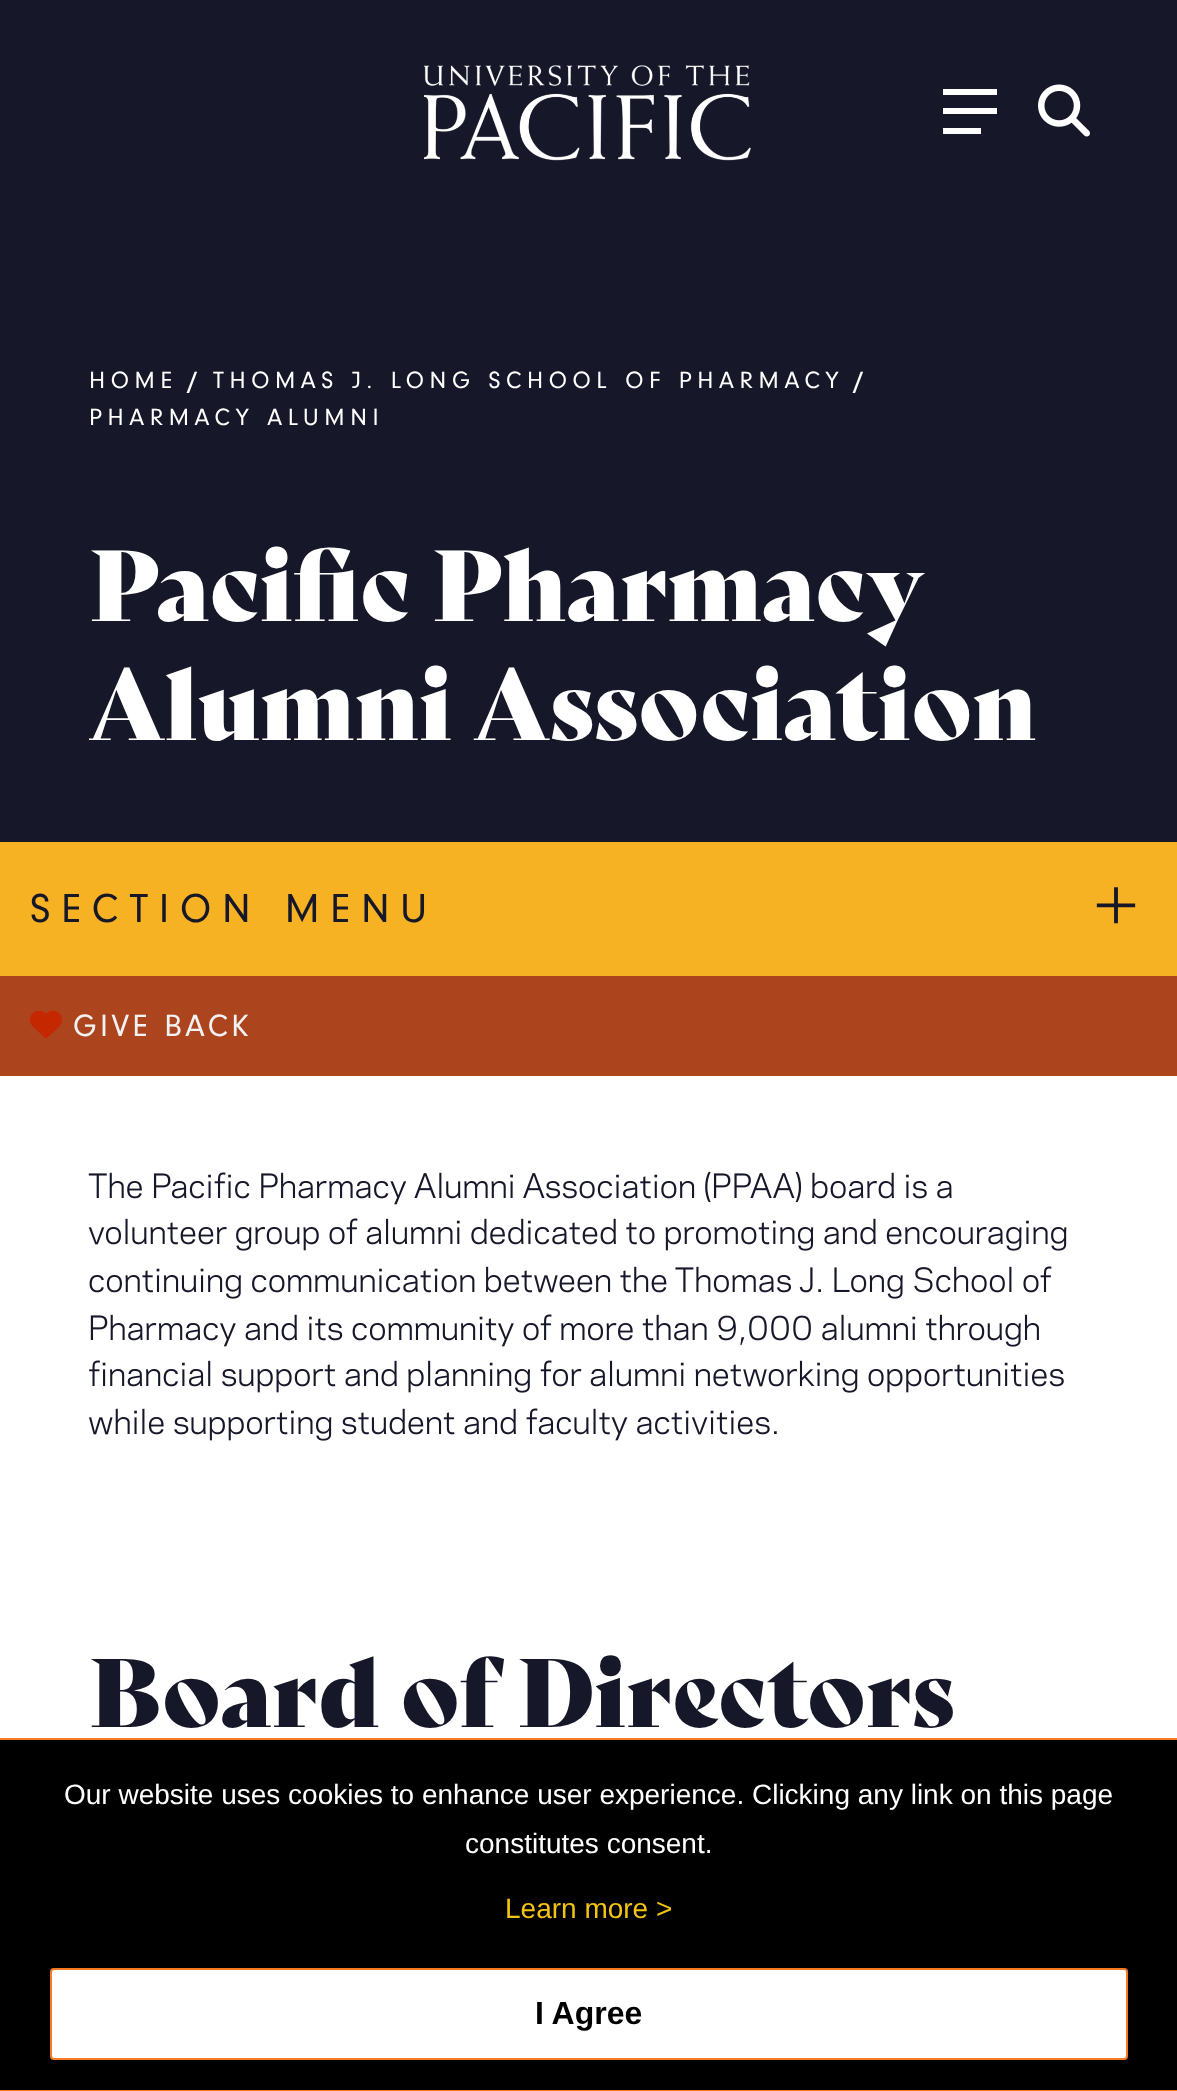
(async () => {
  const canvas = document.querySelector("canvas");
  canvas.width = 1177;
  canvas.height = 2091;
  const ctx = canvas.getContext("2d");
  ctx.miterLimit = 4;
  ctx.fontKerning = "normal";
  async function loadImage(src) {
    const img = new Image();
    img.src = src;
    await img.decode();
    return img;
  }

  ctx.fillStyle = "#ffffff";
  ctx.fillRect(0, 0, 1177, 2091);
  ctx.fillStyle = "#161729";
  ctx.fillRect(0, 0, 1177, 842);
  ctx.drawImage(await loadImage("img/1.png"), 424, 65, 327, 96);
  ctx.drawImage(await loadImage("img/2.png"), 943, 89, 54, 45);
  ctx.drawImage(await loadImage("img/3.png"), 1038, 84, 52, 53);
  ctx.fillStyle = "#f6b222";
  ctx.fillRect(0, 842, 1177, 134);
  ctx.fillStyle = "#ac441e";
  ctx.fillRect(0, 976, 1177, 100);
  ctx.drawImage(await loadImage("img/4.png"), 30, 1010, 32, 28);
  ctx.drawImage(await loadImage("img/5.png"), 88, 1171, 864, 34);
  ctx.drawImage(await loadImage("img/6.png"), 88, 1218, 979, 33);
  ctx.drawImage(await loadImage("img/7.png"), 89, 1266, 963, 33);
  ctx.drawImage(await loadImage("img/8.png"), 90, 1314, 949, 33);
  ctx.drawImage(await loadImage("img/9.png"), 89, 1360, 975, 33);
  ctx.drawImage(await loadImage("img/10.png"), 89, 1408, 688, 33);
  for (const [x, y, w, h, color] of [
    [0, 1740, 1177, 350, "#000000"],
    [0, 1738, 1177, 2, "#f47920"],
    [0, 2090, 1177, 1, "#f47920"],
  ]) {
    ctx.fillStyle = color;
    ctx.fillRect(x, y, w, h);
  }
  ctx.fillStyle = "#ffffff";
  ctx.beginPath();
  ctx.roundRect(51, 1969, 1076, 90, 3);
  ctx.fill();
  ctx.strokeStyle = "#f47920";
  ctx.lineWidth = 2;
  ctx.stroke();
  ctx.letterSpacing = "5.6px";
  ctx.font = "24.5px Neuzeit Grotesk";
  ctx.fillText("HOME", 89, 388);
  ctx.font = "900 24.5px Neuzeit Grotesk";
  ctx.fillText("/", 188, 388);
  ctx.font = "24.5px Neuzeit Grotesk";
  ctx.fillText("THOMAS J. LONG SCHOOL OF PHARMACY", 213, 388);
  ctx.font = "900 24.5px Neuzeit Grotesk";
  ctx.fillText("/", 854, 388);
  ctx.font = "24.5px Neuzeit Grotesk";
  ctx.fillText("PHARMACY ALUMNI", 89, 425);
  ctx.letterSpacing = "0px";
  ctx.font = "98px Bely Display";
  ctx.fillText("Pacific Pharmacy", 89, 621);
  ctx.fillText("Alumni Association", 89, 740);
  ctx.letterSpacing = "10.75px";
  ctx.font = "42px Neuzeit Grotesk";
  ctx.fillStyle = "#161729";
  ctx.fillText("SECTION MENU", 30, 922);
  ctx.font = "84px Neuzeit Grotesk";
  ctx.fillText("+", 1095, 934);
  ctx.letterSpacing = "3.5px";
  ctx.font = "32px Neuzeit Grotesk";
  ctx.fillStyle = "#f2f2f2";
  ctx.fillText("GIVE BACK", 73, 1036);
  ctx.letterSpacing = "0px";
  ctx.font = "94.5px Bely Display";
  ctx.fillStyle = "#161729";
  ctx.fillText("Board of Directors", 89, 1727);
  ctx.font = "28px Liberation Sans";
  ctx.fillStyle = "#ffffff";
  ctx.fillText("Our website uses cookies to enhance user experience. Clicking any link on this page", 64, 1804);
  ctx.fillText("constitutes consent.", 465, 1853);
  ctx.fillStyle = "#f2c314";
  ctx.fillText("Learn more >", 505, 1918);
  ctx.font = "bold 32px Liberation Sans";
  ctx.fillStyle = "#000000";
  ctx.fillText("I Agree", 535, 2024);
})();
